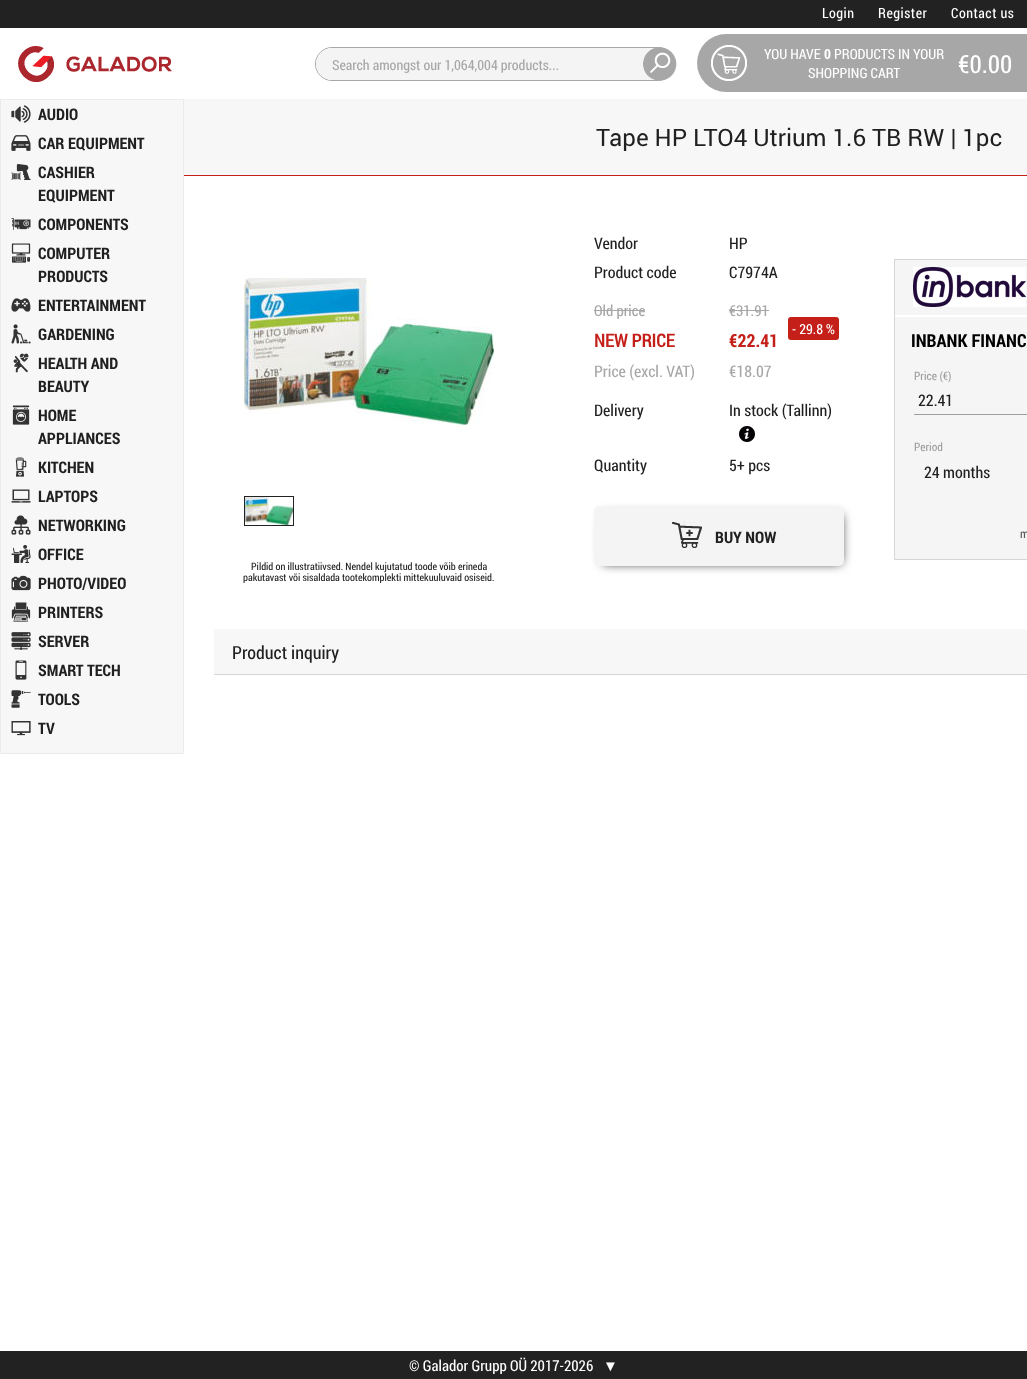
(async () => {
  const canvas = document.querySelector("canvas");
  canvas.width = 1027;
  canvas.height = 1379;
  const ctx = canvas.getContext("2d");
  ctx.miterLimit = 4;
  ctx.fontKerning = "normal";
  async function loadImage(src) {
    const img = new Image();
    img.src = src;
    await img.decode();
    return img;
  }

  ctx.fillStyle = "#ffffff";
  ctx.fillRect(0, 0, 1027, 1379);
  ctx.fillStyle = "#222222";
  ctx.fillRect(0, 0, 1027, 28);
  ctx.drawImage(await loadImage("img/1.png"), 18, 46, 154, 36);
  ctx.beginPath();
  ctx.roundRect(315.5, 47.5, 359, 33, 16.5);
  ctx.strokeStyle = "#a7a7a7";
  ctx.stroke();
  ctx.fillStyle = "#f4f4f4";
  ctx.beginPath();
  ctx.roundRect(316, 48, 358, 32, 16);
  ctx.fill();
  ctx.drawImage(await loadImage("img/2.png"), 643, 47, 34, 34);
  ctx.fillStyle = "#a7a7a7";
  ctx.beginPath();
  ctx.roundRect(697, 34, 330, 58, [29, 0, 0, 29]);
  ctx.fill();
  ctx.drawImage(await loadImage("img/3.png"), 711, 45, 36, 36);
  ctx.fillStyle = "#f7f7f7";
  ctx.beginPath();
  ctx.rect(0.5, 99.5, 183, 654);
  ctx.fill();
  ctx.strokeStyle = "#ebebeb";
  ctx.stroke();
  ctx.drawImage(await loadImage("img/4.png"), 11, 105, 20, 18);
  ctx.drawImage(await loadImage("img/5.png"), 11, 135, 20, 16);
  ctx.drawImage(await loadImage("img/6.png"), 11, 164, 20, 16);
  ctx.drawImage(await loadImage("img/7.png"), 11, 218, 20, 12);
  ctx.drawImage(await loadImage("img/8.png"), 11, 243, 20, 20);
  ctx.drawImage(await loadImage("img/9.png"), 11, 298, 20, 14);
  ctx.drawImage(await loadImage("img/10.png"), 11, 324, 20, 20);
  ctx.drawImage(await loadImage("img/11.png"), 13, 353, 16, 20);
  ctx.drawImage(await loadImage("img/12.png"), 12, 405, 18, 20);
  ctx.drawImage(await loadImage("img/13.png"), 15, 457, 12, 20);
  ctx.drawImage(await loadImage("img/14.png"), 11, 489, 20, 14);
  ctx.drawImage(await loadImage("img/15.png"), 11, 515, 20, 20);
  ctx.drawImage(await loadImage("img/16.png"), 11, 545, 20, 18);
  ctx.drawImage(await loadImage("img/17.png"), 11, 575, 20, 16);
  ctx.drawImage(await loadImage("img/18.png"), 11, 602, 20, 20);
  ctx.drawImage(await loadImage("img/19.png"), 11, 632, 20, 18);
  ctx.drawImage(await loadImage("img/20.png"), 15, 660, 12, 20);
  ctx.drawImage(await loadImage("img/21.png"), 11, 690, 20, 18);
  ctx.drawImage(await loadImage("img/22.png"), 11, 721, 20, 15);
  for (const [x, y, w, h, color] of [
    [184, 99, 843, 76, "#f7f7f7"],
    [184, 175, 843, 1, "#c41f19"],
    [594, 310, 51, 1, "#a7a7a7"],
    [729, 310, 40, 1, "#a7a7a7"],
  ]) {
    ctx.fillStyle = color;
    ctx.fillRect(x, y, w, h);
  }
  ctx.fillStyle = "#c41f19";
  ctx.beginPath();
  ctx.roundRect(788, 317, 51, 23, 3);
  ctx.fill();
  ctx.drawImage(await loadImage("img/23.png"), 739, 426, 16, 16);
  ctx.fillStyle = "#000000";
  ctx.filter = "blur(5.5px)";
  ctx.beginPath();
  ctx.rect(603, 515, 238, 48);
  ctx.fill();
  ctx.filter = "none";
  ctx.fillStyle = "#f4f4f4";
  ctx.beginPath();
  ctx.roundRect(594, 506, 250, 60, 5);
  ctx.fill();
  ctx.drawImage(await loadImage("img/24.png"), 672, 522, 30, 26);
  for (const [x, y, w, h, color] of [
    [894, 259, 133, 1, "#d6d6d6"],
    [894, 259, 1, 58, "#d6d6d6"],
    [895, 260, 132, 55, "#f5f5f5"],
  ]) {
    ctx.fillStyle = color;
    ctx.fillRect(x, y, w, h);
  }
  ctx.beginPath();
  ctx.rect(894.5, 316.5, 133, 243);
  ctx.fill();
  ctx.strokeStyle = "#d6d6d6";
  ctx.stroke();
  ctx.fillStyle = "#ffffff";
  ctx.fillRect(895, 316, 132, 1);
  ctx.drawImage(await loadImage("img/25.png"), 913, 267, 113, 40);
  ctx.fillStyle = "#9e9e9e";
  ctx.fillRect(914, 414, 113, 1);
  ctx.drawImage(await loadImage("img/26.png"), 244, 278, 250, 147);
  ctx.strokeStyle = "#222222";
  ctx.strokeRect(244.5, 496.5, 49, 29);
  ctx.drawImage(await loadImage("img/27.png"), 245, 497, 48, 28);
  for (const [x, y, w, h, color] of [
    [214, 629, 813, 45, "#f7f7f7"],
    [214, 674, 813, 1, "#d5d5d5"],
    [0, 1351, 1027, 28, "#222222"],
  ]) {
    ctx.fillStyle = color;
    ctx.fillRect(x, y, w, h);
  }
  ctx.letterSpacing = "0.5px";
  ctx.font = "14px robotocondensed";
  ctx.fillStyle = "#ffffff";
  for (const [text, x, y] of [
    ["Login", 822, 18],
    ["Register", 878, 18],
    ["Contact us", 951, 18],
  ]) {
    ctx.fillText(text, x, y);
  }
  ctx.letterSpacing = "0px";
  ctx.fillStyle = "#a7a7a7";
  ctx.fillText("Search amongst our 1,064,004 products...", 332, 70);
  ctx.fillStyle = "#ffffff";
  ctx.fillText("YOU HAVE", 764, 59);
  ctx.font = "bold 14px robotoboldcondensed";
  ctx.fillText("0", 824, 59);
  ctx.font = "14px robotocondensed";
  ctx.fillText("PRODUCTS IN YOUR", 834, 59);
  ctx.fillText("SHOPPING CART", 808, 78);
  ctx.font = "25px robotocondensed";
  ctx.fillText("€0.00", 958, 73);
  ctx.font = "bold 16px robotoboldcondensed";
  ctx.fillStyle = "#202020";
  for (const [text, x, y] of [
    ["AUDIO", 38, 120],
    ["CAR EQUIPMENT", 38, 149],
    ["CASHIER", 38, 178],
    ["EQUIPMENT", 38, 201],
    ["COMPONENTS", 38, 230],
    ["COMPUTER", 38, 259],
    ["PRODUCTS", 38, 282],
    ["ENTERTAINMENT", 38, 311],
    ["GARDENING", 38, 340],
    ["HEALTH AND", 38, 369],
    ["BEAUTY", 38, 392],
    ["HOME", 38, 421],
    ["APPLIANCES", 38, 444],
    ["KITCHEN", 38, 473],
    ["LAPTOPS", 38, 502],
    ["NETWORKING", 38, 531],
    ["OFFICE", 38, 560],
    ["PHOTO/VIDEO", 38, 589],
    ["PRINTERS", 38, 618],
    ["SERVER", 38, 647],
    ["SMART TECH", 38, 676],
    ["TOOLS", 38, 705],
    ["TV", 38, 734],
  ]) {
    ctx.fillText(text, x, y);
  }
  ctx.font = "24px roboto";
  ctx.fillText("Tape HP LTO4 Utrium 1.6 TB RW | 1pc", 596, 146);
  ctx.font = "16px robotocondensed";
  for (const [text, x, y] of [
    ["Vendor", 594, 249],
    ["HP", 729, 249],
    ["Product code", 594, 278],
    ["C7974A", 729, 278],
  ]) {
    ctx.fillText(text, x, y);
  }
  ctx.font = "15px robotocondensed";
  ctx.fillStyle = "#a7a7a7";
  ctx.fillText("Old price", 594, 316);
  ctx.fillText("€31.91", 729, 316);
  ctx.font = "bold 18px robotocondensed";
  ctx.fillStyle = "#c41f19";
  ctx.fillText("NEW PRICE", 594, 347);
  ctx.font = "14px robotocondensed";
  ctx.fillStyle = "#ffffff";
  ctx.fillText("- 29.8 %", 792, 334);
  ctx.font = "bold 18px robotoboldcondensed";
  ctx.fillStyle = "#c41f19";
  ctx.fillText("€22.41", 729, 347);
  ctx.font = "16px robotocondensed";
  ctx.fillStyle = "#a7a7a7";
  ctx.fillText("Price (excl. VAT)", 594, 377);
  ctx.fillText("€18.07", 729, 377);
  ctx.fillStyle = "#202020";
  for (const [text, x, y] of [
    ["Delivery", 594, 416],
    ["In stock (Tallinn)", 729, 416],
    ["Quantity", 594, 471],
    ["5+ pcs", 729, 471],
  ]) {
    ctx.fillText(text, x, y);
  }
  ctx.font = "bold 16px robotoboldcondensed";
  ctx.fillText("BUY NOW", 715, 543);
  ctx.font = "bold 18px robotoboldcondensed";
  ctx.fillStyle = "#000000";
  ctx.fillText("INBANK FINANC", 911, 347);
  ctx.font = "11.5px robotocondensed";
  ctx.fillStyle = "#9e9e9e";
  ctx.fillText("Price (€)", 914, 380);
  ctx.font = "16px robotocondensed";
  ctx.fillStyle = "#202020";
  ctx.fillText("22.41", 918, 406);
  ctx.font = "11.5px robotocondensed";
  ctx.fillStyle = "#9e9e9e";
  ctx.fillText("Period", 914, 451);
  ctx.font = "16px robotocondensed";
  ctx.fillStyle = "#202020";
  ctx.fillText("24 months", 924, 478);
  ctx.font = "12px robotocondensed";
  ctx.fillStyle = "#585858";
  ctx.fillText("m", 1020, 538);
  ctx.font = "10.15px robotocondensed";
  ctx.fillStyle = "#202020";
  ctx.fillText("Pildid on illustratiivsed. Nendel kujutatud toode võib erineda", 251, 570);
  ctx.fillText("pakutavast või sisaldada tootekomplekti mittekuuluvaid osiseid.", 243, 581);
  ctx.font = "18px robotocondensed";
  ctx.fillText("Product inquiry", 232, 659);
  ctx.font = "15px robotocondensed";
  ctx.fillStyle = "#ffffff";
  ctx.fillText("© Galador Grupp OÜ 2017-2026", 409, 1371);
  ctx.font = "15px Liberation Serif";
  ctx.fillText("▼", 603, 1371);
})();
